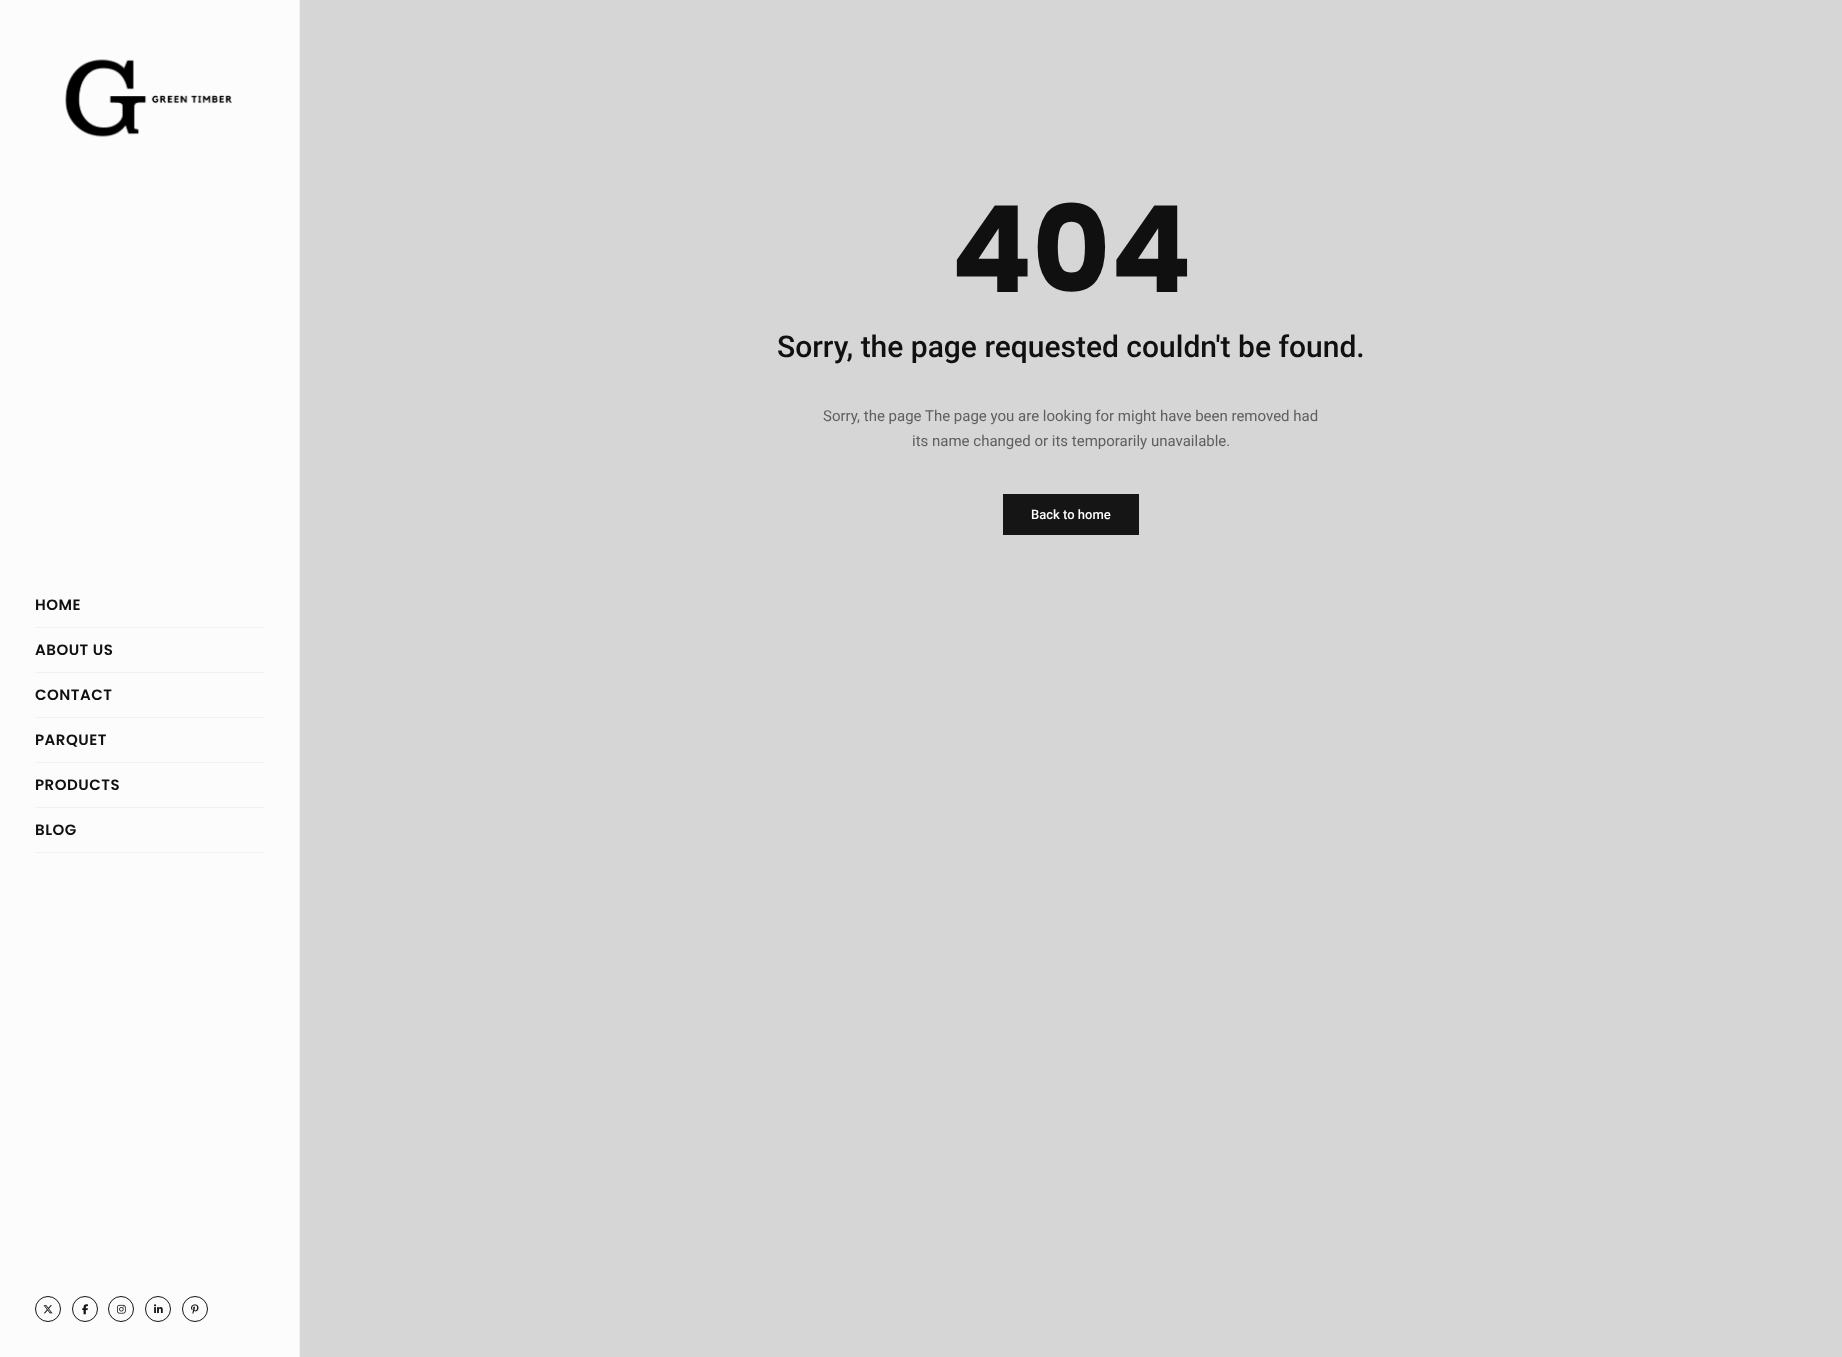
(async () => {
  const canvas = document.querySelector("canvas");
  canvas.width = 1842;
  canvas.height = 1357;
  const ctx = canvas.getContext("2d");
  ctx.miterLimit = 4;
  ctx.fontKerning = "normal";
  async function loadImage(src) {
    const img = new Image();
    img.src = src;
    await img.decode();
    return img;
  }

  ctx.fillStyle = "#d6d6d6";
  ctx.fillRect(0, 0, 1842, 1357);
  for (const [x, y, w, h, color] of [
    [1003, 494, 136, 41, "#151515"],
    [0, 0, 299, 1357, "#fcfcfc"],
    [299, 0, 1, 1357, "#f2f2f2"],
  ]) {
    ctx.fillStyle = color;
    ctx.fillRect(x, y, w, h);
  }
  ctx.drawImage(await loadImage("img/1.png"), 65, 59, 167, 78);
  for (const [x, y, w, h, color] of [
    [35, 627, 229, 1, "#f0f0f0"],
    [35, 672, 229, 1, "#f0f0f0"],
    [35, 717, 229, 1, "#f0f0f0"],
    [35, 762, 229, 1, "#f0f0f0"],
    [35, 807, 229, 1, "#f0f0f0"],
    [35, 852, 229, 1, "#f0f0f0"],
  ]) {
    ctx.fillStyle = color;
    ctx.fillRect(x, y, w, h);
  }
  ctx.beginPath();
  ctx.arc(48, 1309, 12.5, 0, Math.PI * 2);
  ctx.strokeStyle = "#151515";
  ctx.stroke();
  ctx.drawImage(await loadImage("img/2.png"), 43, 1305, 10, 9);
  ctx.beginPath();
  ctx.arc(85, 1309, 12.5, 0, Math.PI * 2);
  ctx.stroke();
  ctx.drawImage(await loadImage("img/3.png"), 82, 1304, 6, 11);
  ctx.beginPath();
  ctx.arc(121, 1309, 12.5, 0, Math.PI * 2);
  ctx.stroke();
  ctx.drawImage(await loadImage("img/4.png"), 117, 1304, 9, 10);
  ctx.beginPath();
  ctx.arc(158, 1309, 12.5, 0, Math.PI * 2);
  ctx.stroke();
  ctx.drawImage(await loadImage("img/5.png"), 154, 1304, 9, 9);
  ctx.beginPath();
  ctx.arc(195, 1309, 12.5, 0, Math.PI * 2);
  ctx.stroke();
  ctx.drawImage(await loadImage("img/6.png"), 191, 1304, 8, 10);
  ctx.font = "bold 120px Poppins";
  ctx.fillStyle = "#101010";
  ctx.fillText("404", 951, 292);
  ctx.font = "500 30px Roboto";
  ctx.fillText("Sorry, the page requested couldn't be found.", 777, 357);
  ctx.font = "15px Roboto";
  ctx.fillStyle = "#5f5f5f";
  ctx.fillText("Sorry, the page The page you are looking for might have been removed had", 823, 421);
  ctx.fillText("its name changed or its temporarily unavailable.", 912, 446);
  ctx.font = "500 13px Roboto";
  ctx.fillStyle = "#ffffff";
  ctx.fillText("Back to home", 1031, 519);
  ctx.letterSpacing = "0.5px";
  ctx.font = "600 15px Poppins";
  ctx.fillStyle = "#101010";
  for (const [text, x, y] of [
    ["HOME", 35, 610],
    ["ABOUT US", 35, 655],
    ["CONTACT", 35, 700],
    ["PARQUET", 35, 745],
    ["PRODUCTS", 35, 790],
    ["BLOG", 35, 835],
  ]) {
    ctx.fillText(text, x, y);
  }
})();
